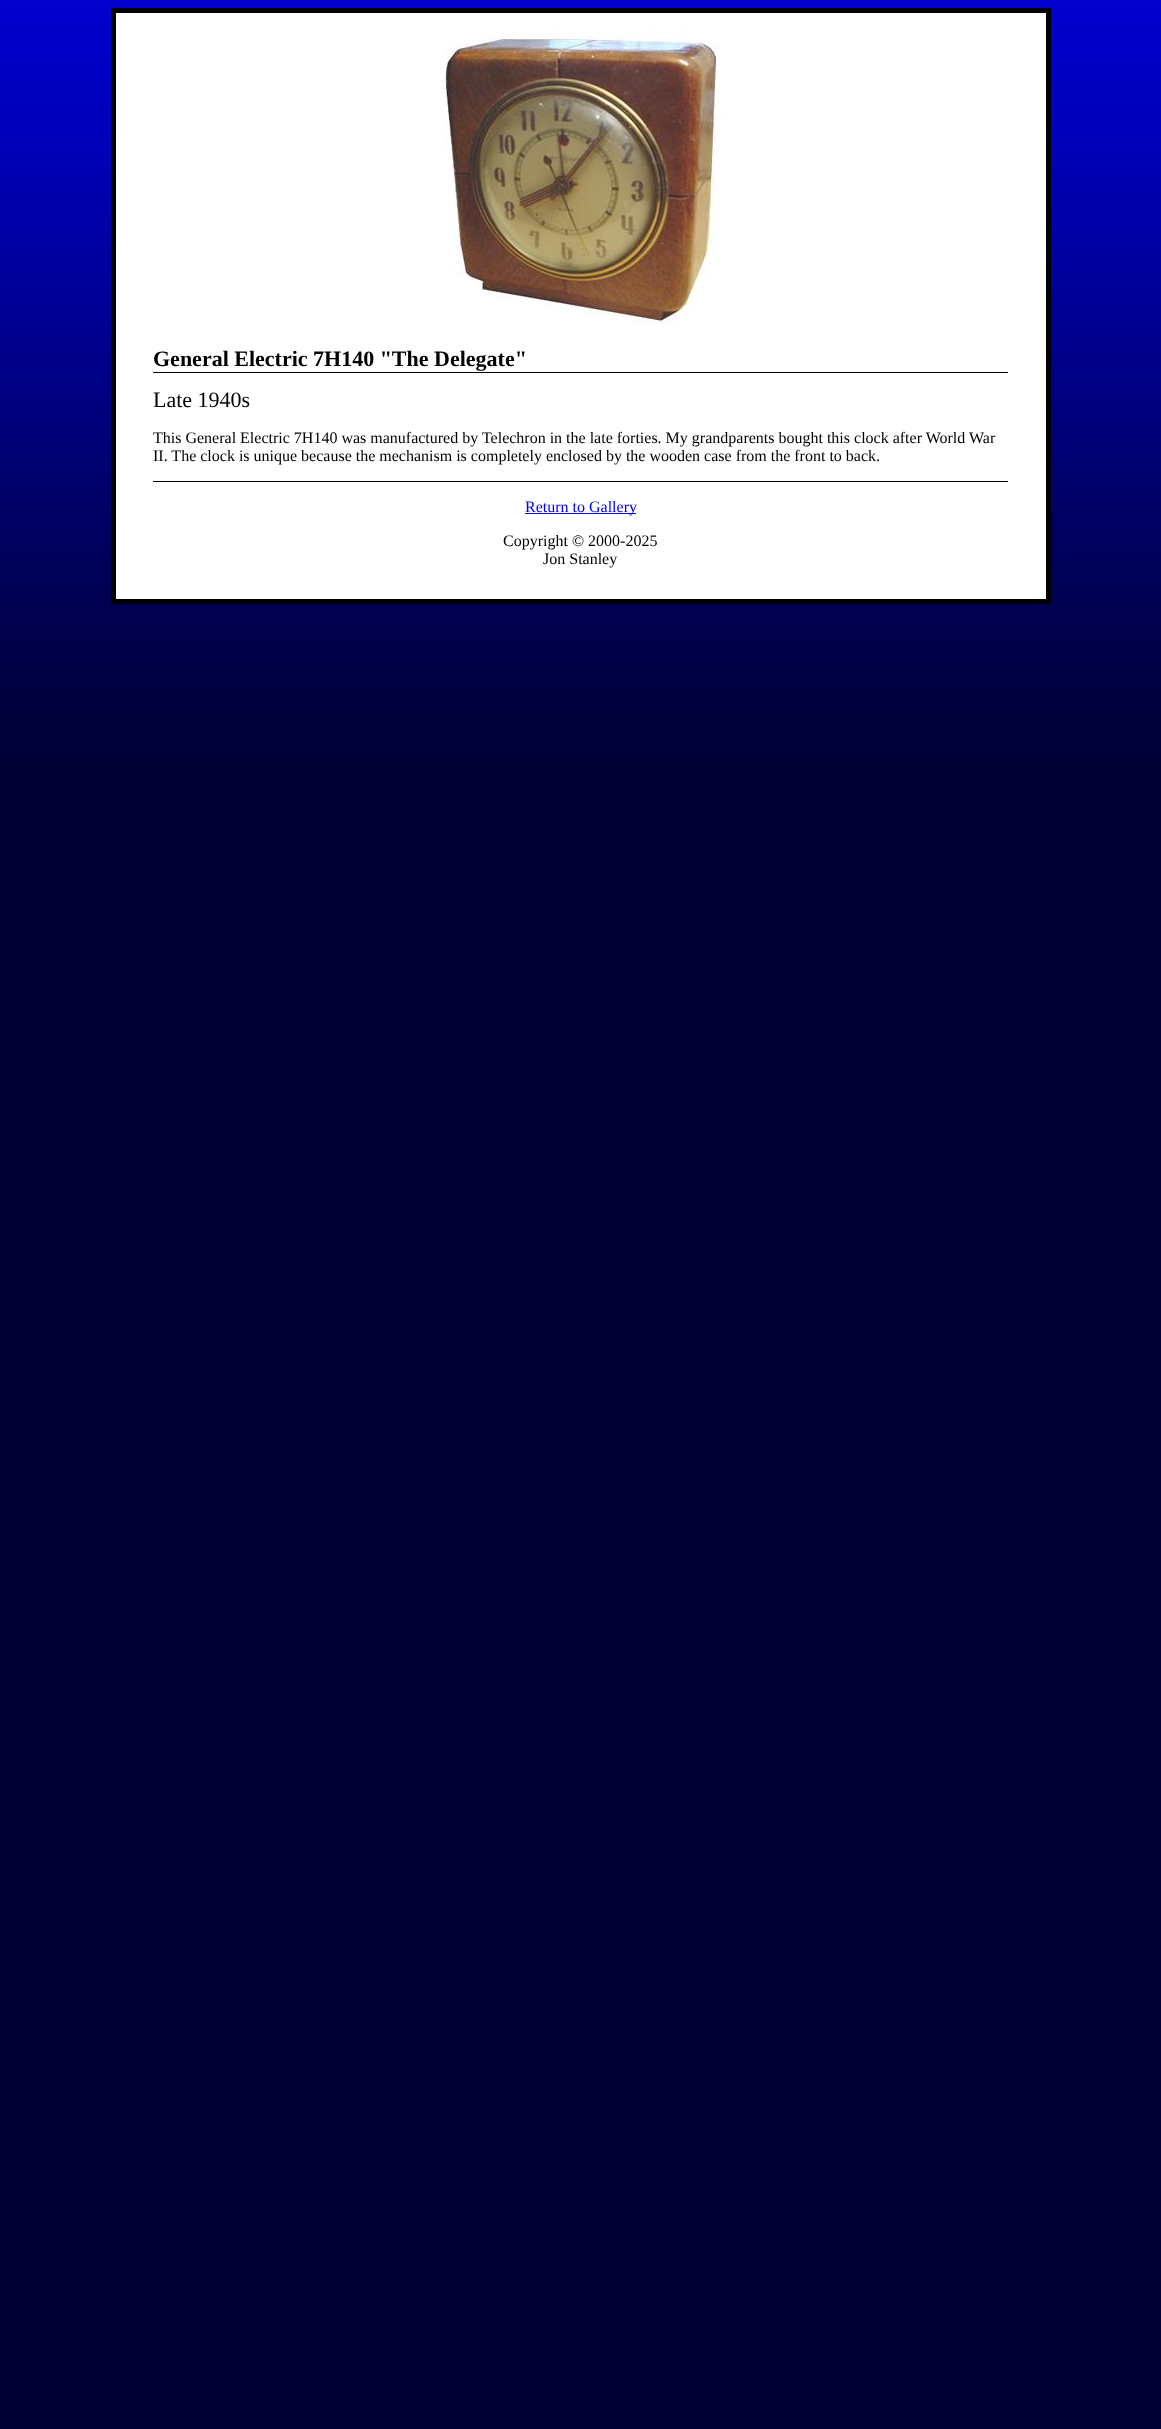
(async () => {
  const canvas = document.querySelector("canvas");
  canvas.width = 1161;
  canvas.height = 2429;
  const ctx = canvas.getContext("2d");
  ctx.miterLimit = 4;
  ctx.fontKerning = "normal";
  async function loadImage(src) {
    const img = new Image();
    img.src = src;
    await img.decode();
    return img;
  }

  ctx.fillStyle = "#000033";
  ctx.fillRect(0, 0, 1161, 2429);
  ctx.drawImage(await loadImage("img/1.png"), 0, 0, 1161, 760);
  ctx.fillStyle = "#ffffff";
  ctx.beginPath();
  ctx.rect(113.5, 10.5, 935, 591);
  ctx.fill();
  ctx.strokeStyle = "#000000";
  ctx.lineWidth = 5;
  ctx.stroke();
  ctx.drawImage(await loadImage("img/2.png"), 444, 28, 280, 296);
  for (const [x, y, w, h, color] of [
    [153, 372, 855, 1, "#000000"],
    [153, 481, 855, 1, "#000000"],
    [525, 513, 111, 1, "#0000ee"],
  ]) {
    ctx.fillStyle = color;
    ctx.fillRect(x, y, w, h);
  }
  ctx.font = "bold 22px Liberation Serif";
  ctx.fillStyle = "#000000";
  ctx.fillText("General Electric 7H140 \"The Delegate\"", 153, 366);
  ctx.font = "22px Liberation Serif";
  ctx.fillText("Late 1940s", 153, 407);
  ctx.font = "16px Liberation Serif";
  ctx.fillText("This General Electric 7H140 was manufactured by Telechron in the late forties. My grandparents bought this clock after World War", 153, 443);
  ctx.fillText("II. The clock is unique because the mechanism is completely enclosed by the wooden case from the front to back.", 153, 461);
  ctx.fillStyle = "#0000ee";
  ctx.fillText("Return to Gallery", 525, 512);
  ctx.fillStyle = "#000000";
  ctx.fillText("Copyright © 2000-2025", 503, 546);
  ctx.fillText("Jon Stanley", 543, 564);
})();
